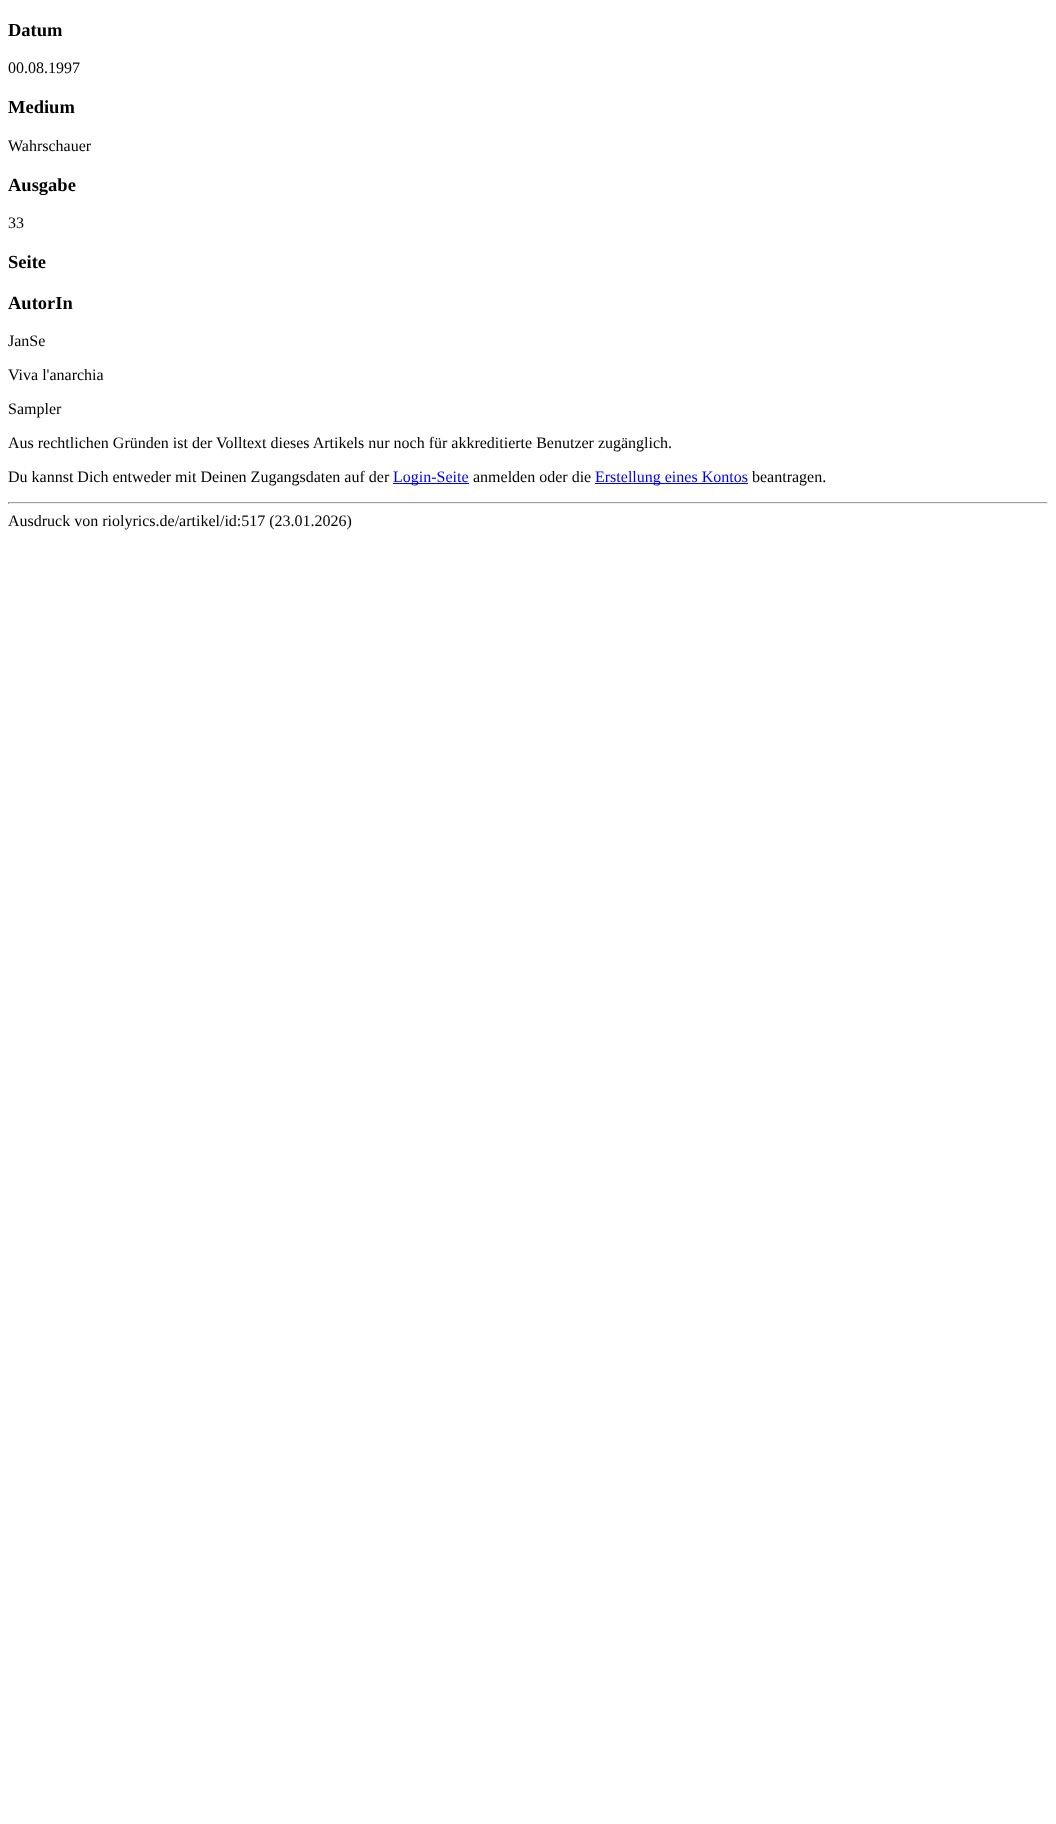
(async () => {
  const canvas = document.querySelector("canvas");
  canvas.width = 1056;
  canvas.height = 1824;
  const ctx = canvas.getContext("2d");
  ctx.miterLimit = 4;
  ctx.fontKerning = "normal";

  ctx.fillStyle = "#ffffff";
  ctx.fillRect(0, 0, 1056, 1824);
  for (const [x, y, w, h, color] of [
    [393, 483, 76, 1, "#0000ee"],
    [595, 483, 153, 1, "#0000ee"],
    [8, 502, 1040, 1, "#9f9f9f"],
    [1047, 502, 1, 2, "#eeeeee"],
    [8, 503, 1040, 1, "#eeeeee"],
    [8, 502, 1, 2, "#9f9f9f"],
  ]) {
    ctx.fillStyle = color;
    ctx.fillRect(x, y, w, h);
  }
  ctx.font = "bold 18.5px Liberation Serif";
  ctx.fillStyle = "#000000";
  ctx.fillText("Datum", 8, 36);
  ctx.font = "16px Liberation Serif";
  ctx.fillText("00.08.1997", 8, 73);
  ctx.font = "bold 18.5px Liberation Serif";
  ctx.fillText("Medium", 8, 113);
  ctx.font = "16px Liberation Serif";
  ctx.fillText("Wahrschauer", 8, 151);
  ctx.font = "bold 18.5px Liberation Serif";
  ctx.fillText("Ausgabe", 8, 191);
  ctx.font = "16px Liberation Serif";
  ctx.fillText("33", 8, 228);
  ctx.font = "bold 18.5px Liberation Serif";
  ctx.fillText("Seite", 8, 268);
  ctx.fillText("AutorIn", 8, 309);
  ctx.font = "16px Liberation Serif";
  for (const [text, x, y] of [
    ["JanSe", 8, 346],
    ["Viva l'anarchia", 8, 380],
    ["Sampler", 8, 414],
    ["Aus rechtlichen Gründen ist der Volltext dieses Artikels nur noch für akkreditierte Benutzer zugänglich.", 8, 448],
    ["Du kannst Dich entweder mit Deinen Zugangsdaten auf der", 8, 482],
  ]) {
    ctx.fillText(text, x, y);
  }
  ctx.fillStyle = "#0000ee";
  ctx.fillText("Login-Seite", 393, 482);
  ctx.fillStyle = "#000000";
  ctx.fillText("anmelden oder die", 473, 482);
  ctx.fillStyle = "#0000ee";
  ctx.fillText("Erstellung eines Kontos", 595, 482);
  ctx.fillStyle = "#000000";
  ctx.fillText("beantragen.", 752, 482);
  ctx.fillText("Ausdruck von riolyrics.de/artikel/id:517 (23.01.2026)", 8, 526);
})();
